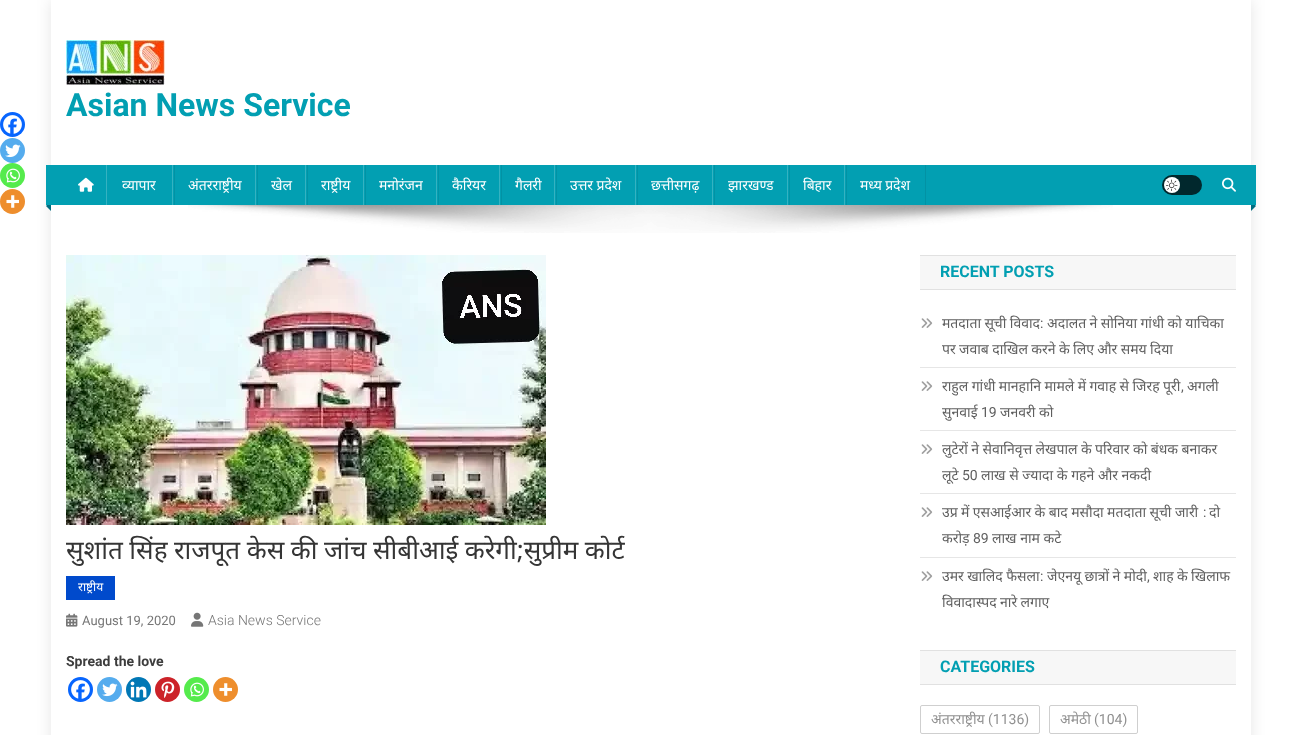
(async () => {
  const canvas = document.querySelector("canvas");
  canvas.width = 1302;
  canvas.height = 735;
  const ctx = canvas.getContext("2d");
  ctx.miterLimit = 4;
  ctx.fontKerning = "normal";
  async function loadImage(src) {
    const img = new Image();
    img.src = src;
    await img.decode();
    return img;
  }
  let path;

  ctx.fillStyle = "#ffffff";
  ctx.fillRect(0, 0, 1302, 735);
  ctx.save();
  path = new Path2D("M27 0H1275V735H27ZM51 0H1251V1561H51Z");
  ctx.clip(path, "evenodd");
  ctx.fillStyle = "rgba(0, 0, 0, 0.1)";
  ctx.filter = "blur(7.5px)";
  ctx.beginPath();
  ctx.rect(51, 0, 1200, 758);
  ctx.fill();
  ctx.filter = "none";
  ctx.restore();
  ctx.drawImage(await loadImage("img/1.png"), 66, 40, 99, 45);
  ctx.fillStyle = "#029fb2";
  ctx.fillRect(51, 165, 1200, 40);
  ctx.fillStyle = "#006d80";
  path = new Path2D("M51 201V211L46 206Z");
  ctx.fill(path);
  ctx.fillStyle = "#029fb2";
  ctx.fillRect(46, 165, 5, 40);
  ctx.drawImage(await loadImage("img/2.png"), 78, 177, 16, 15);
  for (const [x, y, w, h, color] of [
    [174, 165, 1, 40, "#0292a4"],
    [106, 165, 1, 40, "#35b2c1"],
    [257, 165, 1, 40, "#0292a4"],
    [172, 165, 1, 40, "#35b2c1"],
    [307, 165, 1, 40, "#0292a4"],
    [255, 165, 1, 40, "#35b2c1"],
    [365, 165, 1, 40, "#0292a4"],
    [305, 165, 1, 40, "#35b2c1"],
    [438, 165, 1, 40, "#0292a4"],
    [363, 165, 1, 40, "#35b2c1"],
    [501, 165, 1, 40, "#0292a4"],
    [436, 165, 1, 40, "#35b2c1"],
    [556, 165, 1, 40, "#0292a4"],
    [499, 165, 1, 40, "#35b2c1"],
    [637, 165, 1, 40, "#0292a4"],
    [554, 165, 1, 40, "#35b2c1"],
    [714, 165, 1, 40, "#0292a4"],
    [635, 165, 1, 40, "#35b2c1"],
    [789, 165, 1, 40, "#0292a4"],
    [712, 165, 1, 40, "#35b2c1"],
    [846, 165, 1, 40, "#0292a4"],
    [787, 165, 1, 40, "#35b2c1"],
    [925, 165, 1, 40, "#0292a4"],
    [844, 165, 1, 40, "#35b2c1"],
  ]) {
    ctx.fillStyle = color;
    ctx.fillRect(x, y, w, h);
  }
  ctx.fillStyle = "#01282d";
  ctx.beginPath();
  ctx.roundRect(1162, 175, 40, 20, 10);
  ctx.fill();
  ctx.fillStyle = "#ffffff";
  ctx.beginPath();
  ctx.arc(1172, 185, 8, 0, Math.PI * 2);
  ctx.fill();
  ctx.drawImage(await loadImage("img/3.png"), 1166, 179, 12, 12);
  ctx.drawImage(await loadImage("img/4.png"), 1222, 177, 14, 15);
  ctx.drawImage(await loadImage("img/5.png"), 188, 205, 925, 28);
  ctx.fillStyle = "#006d80";
  path = new Path2D("M1251 211V201L1256 206Z");
  ctx.fill(path);
  ctx.fillStyle = "#029fb2";
  ctx.fillRect(1251, 165, 5, 40);
  ctx.drawImage(await loadImage("img/6.png"), 66, 255, 480, 270);
  ctx.fillStyle = "#004acc";
  ctx.fillRect(66, 576, 49, 24);
  ctx.drawImage(await loadImage("img/7.png"), 66, 613, 12, 14);
  ctx.drawImage(await loadImage("img/8.png"), 191, 612, 13, 15);
  ctx.fillStyle = "#0765fe";
  ctx.beginPath();
  ctx.arc(12.5, 124.5, 12.5, 0, Math.PI * 2);
  ctx.fill();
  ctx.drawImage(await loadImage("img/9.png"), 3, 115, 19, 19);
  ctx.fillStyle = "#55acee";
  ctx.beginPath();
  ctx.arc(12.5, 150.5, 12.5, 0, Math.PI * 2);
  ctx.fill();
  ctx.drawImage(await loadImage("img/10.png"), 5, 144, 16, 14);
  ctx.fillStyle = "#55eb4c";
  ctx.beginPath();
  ctx.arc(12.5, 175.5, 12.5, 0, Math.PI * 2);
  ctx.fill();
  ctx.drawImage(await loadImage("img/11.png"), 6, 168, 14, 15);
  ctx.fillStyle = "#ee8e2d";
  ctx.beginPath();
  ctx.arc(12.5, 201.5, 12.5, 0, Math.PI * 2);
  ctx.fill();
  ctx.drawImage(await loadImage("img/12.png"), 6, 195, 13, 13);
  ctx.fillStyle = "#0765fe";
  ctx.beginPath();
  ctx.arc(80.5, 689.5, 12.5, 0, Math.PI * 2);
  ctx.fill();
  ctx.drawImage(await loadImage("img/9.png"), 71, 680, 19, 19);
  ctx.fillStyle = "#55acee";
  ctx.beginPath();
  ctx.arc(109.5, 689.5, 12.5, 0, Math.PI * 2);
  ctx.fill();
  ctx.drawImage(await loadImage("img/10.png"), 102, 683, 16, 14);
  ctx.fillStyle = "#0077b5";
  ctx.beginPath();
  ctx.arc(138.5, 689.5, 12.5, 0, Math.PI * 2);
  ctx.fill();
  ctx.drawImage(await loadImage("img/13.png"), 130, 681, 17, 17);
  ctx.fillStyle = "#cc2329";
  ctx.beginPath();
  ctx.arc(167.5, 689.5, 12.5, 0, Math.PI * 2);
  ctx.fill();
  ctx.drawImage(await loadImage("img/14.png"), 161, 681, 14, 17);
  ctx.fillStyle = "#55eb4c";
  ctx.beginPath();
  ctx.arc(196.5, 689.5, 12.5, 0, Math.PI * 2);
  ctx.fill();
  ctx.drawImage(await loadImage("img/11.png"), 190, 682, 14, 15);
  ctx.fillStyle = "#ee8e2d";
  ctx.beginPath();
  ctx.arc(225.5, 689.5, 12.5, 0, Math.PI * 2);
  ctx.fill();
  ctx.drawImage(await loadImage("img/12.png"), 219, 683, 13, 13);
  for (const [x, y, w, h, color] of [
    [920, 256, 316, 33, "#f7f7f7"],
    [920, 255, 316, 1, "#e1e1e1"],
    [920, 289, 316, 1, "#e1e1e1"],
    [920, 367, 316, 1, "#e6e6e6"],
  ]) {
    ctx.fillStyle = color;
    ctx.fillRect(x, y, w, h);
  }
  ctx.drawImage(await loadImage("img/15.png"), 921, 318, 12, 10);
  ctx.fillRect(920, 430, 316, 1);
  ctx.drawImage(await loadImage("img/15.png"), 921, 381, 12, 10);
  ctx.fillRect(920, 493, 316, 1);
  ctx.drawImage(await loadImage("img/15.png"), 921, 444, 12, 10);
  ctx.fillRect(920, 557, 316, 1);
  ctx.drawImage(await loadImage("img/15.png"), 921, 507, 12, 10);
  ctx.drawImage(await loadImage("img/15.png"), 921, 571, 12, 10);
  for (const [x, y, w, h, color] of [
    [920, 651, 316, 33, "#f7f7f7"],
    [920, 650, 316, 1, "#e1e1e1"],
    [920, 684, 316, 1, "#e1e1e1"],
  ]) {
    ctx.fillStyle = color;
    ctx.fillRect(x, y, w, h);
  }
  ctx.beginPath();
  ctx.roundRect(920.5, 705.5, 119, 28, 1.5);
  ctx.strokeStyle = "#cfcfcf";
  ctx.stroke();
  ctx.beginPath();
  ctx.roundRect(1049.5, 705.5, 88, 28, 1.5);
  ctx.stroke();
  ctx.font = "bold 32px Roboto";
  ctx.fillStyle = "#029fb2";
  ctx.fillText("Asian News Service", 66, 116);
  ctx.font = "14px Noto Sans";
  ctx.fillStyle = "#ffffff";
  for (const [text, x, y] of [
    ["व्यापार", 122, 190],
    ["अंतरराष्ट्रीय", 188, 190],
    ["खेल", 271, 190],
    ["राष्ट्रीय", 321, 190],
    ["मनोरंजन", 379, 190],
    ["कैरियर", 452, 190],
    ["गैलरी", 515, 190],
  ]) {
    ctx.fillText(text, x, y);
  }
  ctx.wordSpacing = "-0.25px";
  ctx.fillText("उत्तर प्रदेश", 570, 190);
  ctx.wordSpacing = "0px";
  for (const [text, x, y] of [
    ["छत्तीसगढ़", 651, 190],
    ["झारखण्ड", 728, 190],
    ["बिहार", 803, 190],
  ]) {
    ctx.fillText(text, x, y);
  }
  ctx.wordSpacing = "-0.25px";
  ctx.fillText("मध्य प्रदेश", 860, 190);
  ctx.font = "26px Noto Sans";
  ctx.fillStyle = "#353535";
  ctx.fillText("सुशांत सिंह राजपूत केस की जांच सीबीआई करेगी;सुप्रीम कोर्ट", 66, 559);
  ctx.wordSpacing = "0px";
  ctx.font = "12px Noto Sans";
  ctx.fillStyle = "#ffffff";
  ctx.fillText("राष्ट्रीय", 78, 591);
  ctx.font = "13px Roboto";
  ctx.fillStyle = "#767676";
  ctx.fillText("August 19, 2020", 82, 625);
  ctx.font = "300 14px Roboto";
  ctx.fillText("Asia News Service", 208, 625);
  ctx.font = "bold 14px Roboto";
  ctx.fillStyle = "#3d3d3d";
  ctx.fillText("Spread the love", 66, 666);
  ctx.font = "bold 16px Roboto";
  ctx.fillStyle = "#029fb2";
  ctx.fillText("RECENT POSTS", 940, 277);
  ctx.wordSpacing = "-0.25px";
  ctx.font = "14px Noto Sans";
  ctx.fillStyle = "#5f5f5f";
  ctx.fillText("मतदाता सूची विवाद", 942, 328);
  ctx.wordSpacing = "0px";
  ctx.font = "14px Roboto";
  ctx.fillText(":", 1040, 328);
  ctx.wordSpacing = "-0.25px";
  ctx.font = "14px Noto Sans";
  for (const [text, x, y] of [
    ["अदालत ने सोनिया गांधी को याचिका", 1047, 328],
    ["पर जवाब दाखिल करने के लिए और समय दिया", 942, 354],
    ["राहुल गांधी मानहानि मामले में गवाह से जिरह पूरी", 942, 391],
  ]) {
    ctx.fillText(text, x, y);
  }
  ctx.wordSpacing = "0px";
  ctx.font = "14px Roboto";
  ctx.fillText(",", 1181, 391);
  ctx.font = "14px Noto Sans";
  ctx.fillText("अगली", 1187, 391);
  ctx.fillText("सुनवाई", 942, 417);
  ctx.font = "14px Roboto";
  ctx.fillText("19", 981, 417);
  ctx.font = "14px Noto Sans";
  ctx.fillText("जनवरी को", 1000, 417);
  ctx.wordSpacing = "-0.25px";
  ctx.fillText("लुटेरों ने सेवानिवृत्त लेखपाल के परिवार को बंधक बनाकर", 942, 454);
  ctx.wordSpacing = "0px";
  ctx.fillText("लूटे", 942, 480);
  ctx.font = "14px Roboto";
  ctx.fillText("50", 962, 480);
  ctx.font = "14px Noto Sans";
  ctx.fillText("लाख से ज्यादा के गहने और नकदी", 981, 480);
  ctx.wordSpacing = "-0.25px";
  ctx.fillText("उप्र में एसआईआर के बाद मसौदा मतदाता सूची जारी", 942, 517);
  ctx.wordSpacing = "0px";
  ctx.font = "14px Roboto";
  ctx.fillText(":", 1203, 517);
  ctx.font = "14px Noto Sans";
  ctx.fillText("दो", 1209, 517);
  ctx.fillText("करोड़", 942, 543);
  ctx.font = "14px Roboto";
  ctx.fillText("89", 973, 543);
  ctx.font = "14px Noto Sans";
  ctx.fillText("लाख नाम कटे", 992, 543);
  ctx.wordSpacing = "-0.25px";
  ctx.fillText("उमर खालिद फैसला", 942, 581);
  ctx.fillText("शाह के खिलाफ", 1153, 581);
  ctx.wordSpacing = "0px";
  ctx.font = "14px Roboto";
  ctx.fillText(":", 1040, 581);
  ctx.wordSpacing = "-0.25px";
  ctx.font = "14px Noto Sans";
  ctx.fillText("जेएनयू छात्रों ने मोदी", 1047, 581);
  ctx.wordSpacing = "0px";
  ctx.font = "14px Roboto";
  ctx.fillText(",", 1147, 581);
  ctx.wordSpacing = "-0.25px";
  ctx.font = "14px Noto Sans";
  ctx.fillText("विवादास्पद नारे लगाए", 942, 607);
  ctx.wordSpacing = "0px";
  ctx.font = "bold 16px Roboto";
  ctx.fillStyle = "#029fb2";
  ctx.fillText("CATEGORIES", 940, 672);
  ctx.font = "14px Noto Sans";
  ctx.fillStyle = "#909090";
  ctx.fillText("अंतरराष्ट्रीय", 931, 724);
  ctx.font = "14px Roboto";
  ctx.fillText("(1136)", 988, 724);
  ctx.font = "14px Noto Sans";
  ctx.fillText("अमेठी", 1060, 724);
  ctx.font = "14px Roboto";
  ctx.fillText("(104)", 1094, 724);
})();
